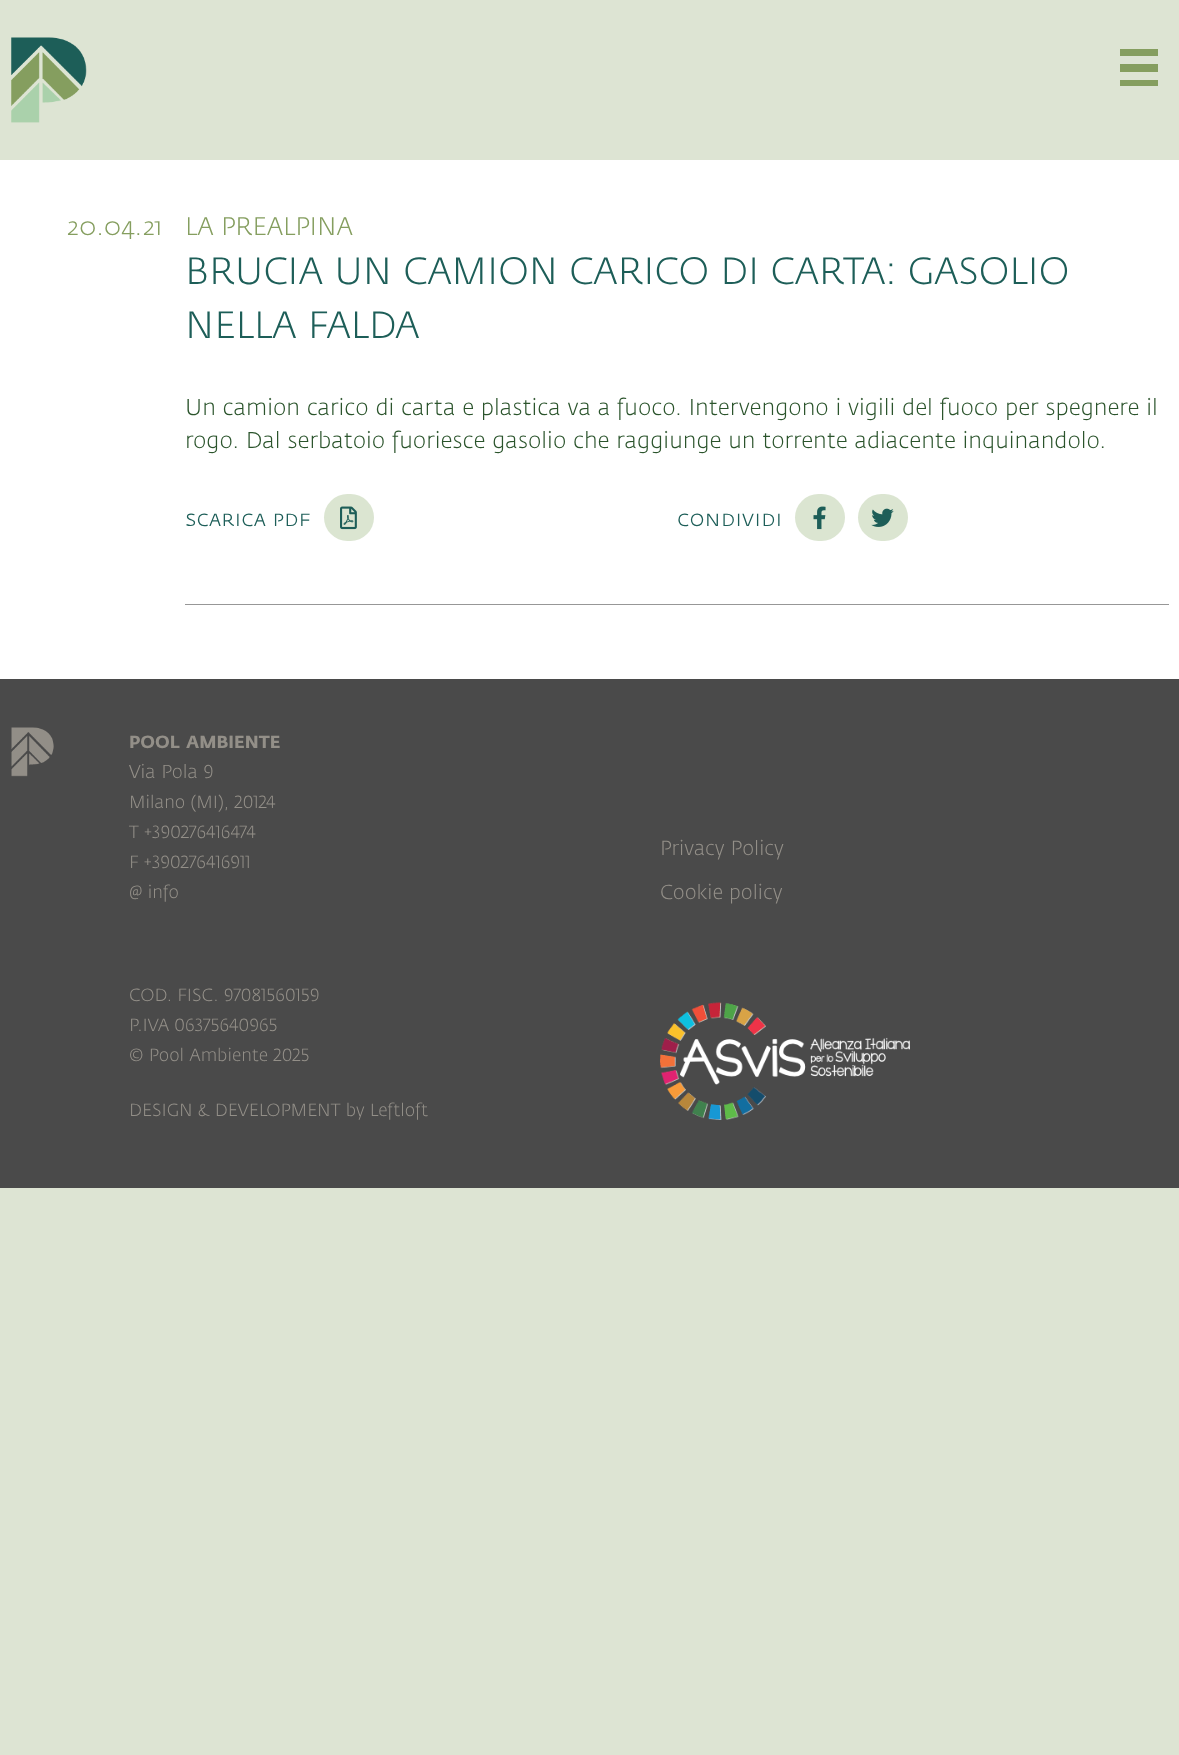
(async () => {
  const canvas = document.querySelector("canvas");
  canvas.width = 1179;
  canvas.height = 1755;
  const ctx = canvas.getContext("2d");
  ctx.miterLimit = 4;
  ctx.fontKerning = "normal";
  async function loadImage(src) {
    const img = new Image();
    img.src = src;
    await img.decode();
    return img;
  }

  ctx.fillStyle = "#dde4d3";
  ctx.fillRect(0, 0, 1179, 1755);
  ctx.drawImage(await loadImage("img/1.png"), 11, 37, 76, 86);
  for (const [x, y, w, h, color] of [
    [1120, 49, 38, 7, "#859e5f"],
    [1120, 64, 38, 8, "#859e5f"],
    [1120, 80, 38, 6, "#859e5f"],
    [0, 160, 1179, 519, "#ffffff"],
    [185, 604, 984, 1, "#979797"],
  ]) {
    ctx.fillStyle = color;
    ctx.fillRect(x, y, w, h);
  }
  ctx.fillStyle = "#dbe5d1";
  ctx.beginPath();
  ctx.roundRect(324, 494, 50, 47, 23.5);
  ctx.fill();
  ctx.drawImage(await loadImage("img/2.png"), 340, 506, 17, 24);
  ctx.beginPath();
  ctx.roundRect(795, 494, 50, 47, 23.5);
  ctx.fill();
  ctx.drawImage(await loadImage("img/3.png"), 813, 506, 13, 24);
  ctx.beginPath();
  ctx.roundRect(858, 494, 50, 47, 23.5);
  ctx.fill();
  ctx.drawImage(await loadImage("img/4.png"), 871, 508, 23, 19);
  ctx.fillStyle = "#4a4a4a";
  ctx.fillRect(0, 679, 1179, 509);
  ctx.drawImage(await loadImage("img/5.png"), 11, 727, 43, 50);
  ctx.drawImage(await loadImage("img/6.png"), 660, 1002, 250, 118);
  ctx.font = "300 25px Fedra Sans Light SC";
  ctx.fillStyle = "#859e5f";
  ctx.fillText("20.04.21", 67, 235);
  ctx.font = "300 25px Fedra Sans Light";
  ctx.fillText("LA PREALPINA", 185, 235);
  ctx.font = "300 37.5px Fedra Sans Light";
  ctx.fillStyle = "#1d5e58";
  ctx.fillText("BRUCIA UN CAMION CARICO DI CARTA: GASOLIO", 185, 284);
  ctx.fillText("NELLA FALDA", 185, 338);
  ctx.font = "300 22.5px Fedra Sans Light";
  ctx.fillStyle = "#2b542c";
  ctx.fillText("Un camion carico di carta e plastica va a fuoco. Intervengono i vigili del fuoco per spegnere il", 185, 415);
  ctx.fillText("rogo. Dal serbatoio fuoriesce gasolio che raggiunge un torrente adiacente inquinandolo.", 185, 448);
  ctx.font = "300 22.5px Fedra Sans Light SC";
  ctx.fillStyle = "#1d5e58";
  ctx.fillText("scarica pdf", 185, 526);
  ctx.fillText("condividi", 677, 526);
  ctx.font = "bold 17.5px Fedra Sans";
  ctx.fillStyle = "#938f88";
  ctx.fillText("POOL AMBIENTE", 129, 748);
  ctx.font = "300 18.5px Fedra Sans Light";
  ctx.fillText("Via Pola 9", 129, 778);
  ctx.font = "300 17.5px Fedra Sans Light";
  for (const [text, x, y] of [
    ["Milano (MI), 20124", 129, 808],
    ["T +390276416474", 129, 838],
    ["F +390276416911", 129, 868],
    ["@ info", 129, 898],
  ]) {
    ctx.fillText(text, x, y);
  }
  ctx.font = "300 20px Fedra Sans Light";
  ctx.fillText("Privacy Policy", 660, 855);
  ctx.fillText("Cookie policy", 660, 899);
  ctx.font = "300 17.5px Fedra Sans Light";
  for (const [text, x, y] of [
    ["COD. FISC. 97081560159", 129, 1001],
    ["P.IVA 06375640965", 129, 1031],
    ["© Pool Ambiente 2025", 129, 1061],
    ["DESIGN & DEVELOPMENT by Leftloft", 129, 1116],
  ]) {
    ctx.fillText(text, x, y);
  }
})();
